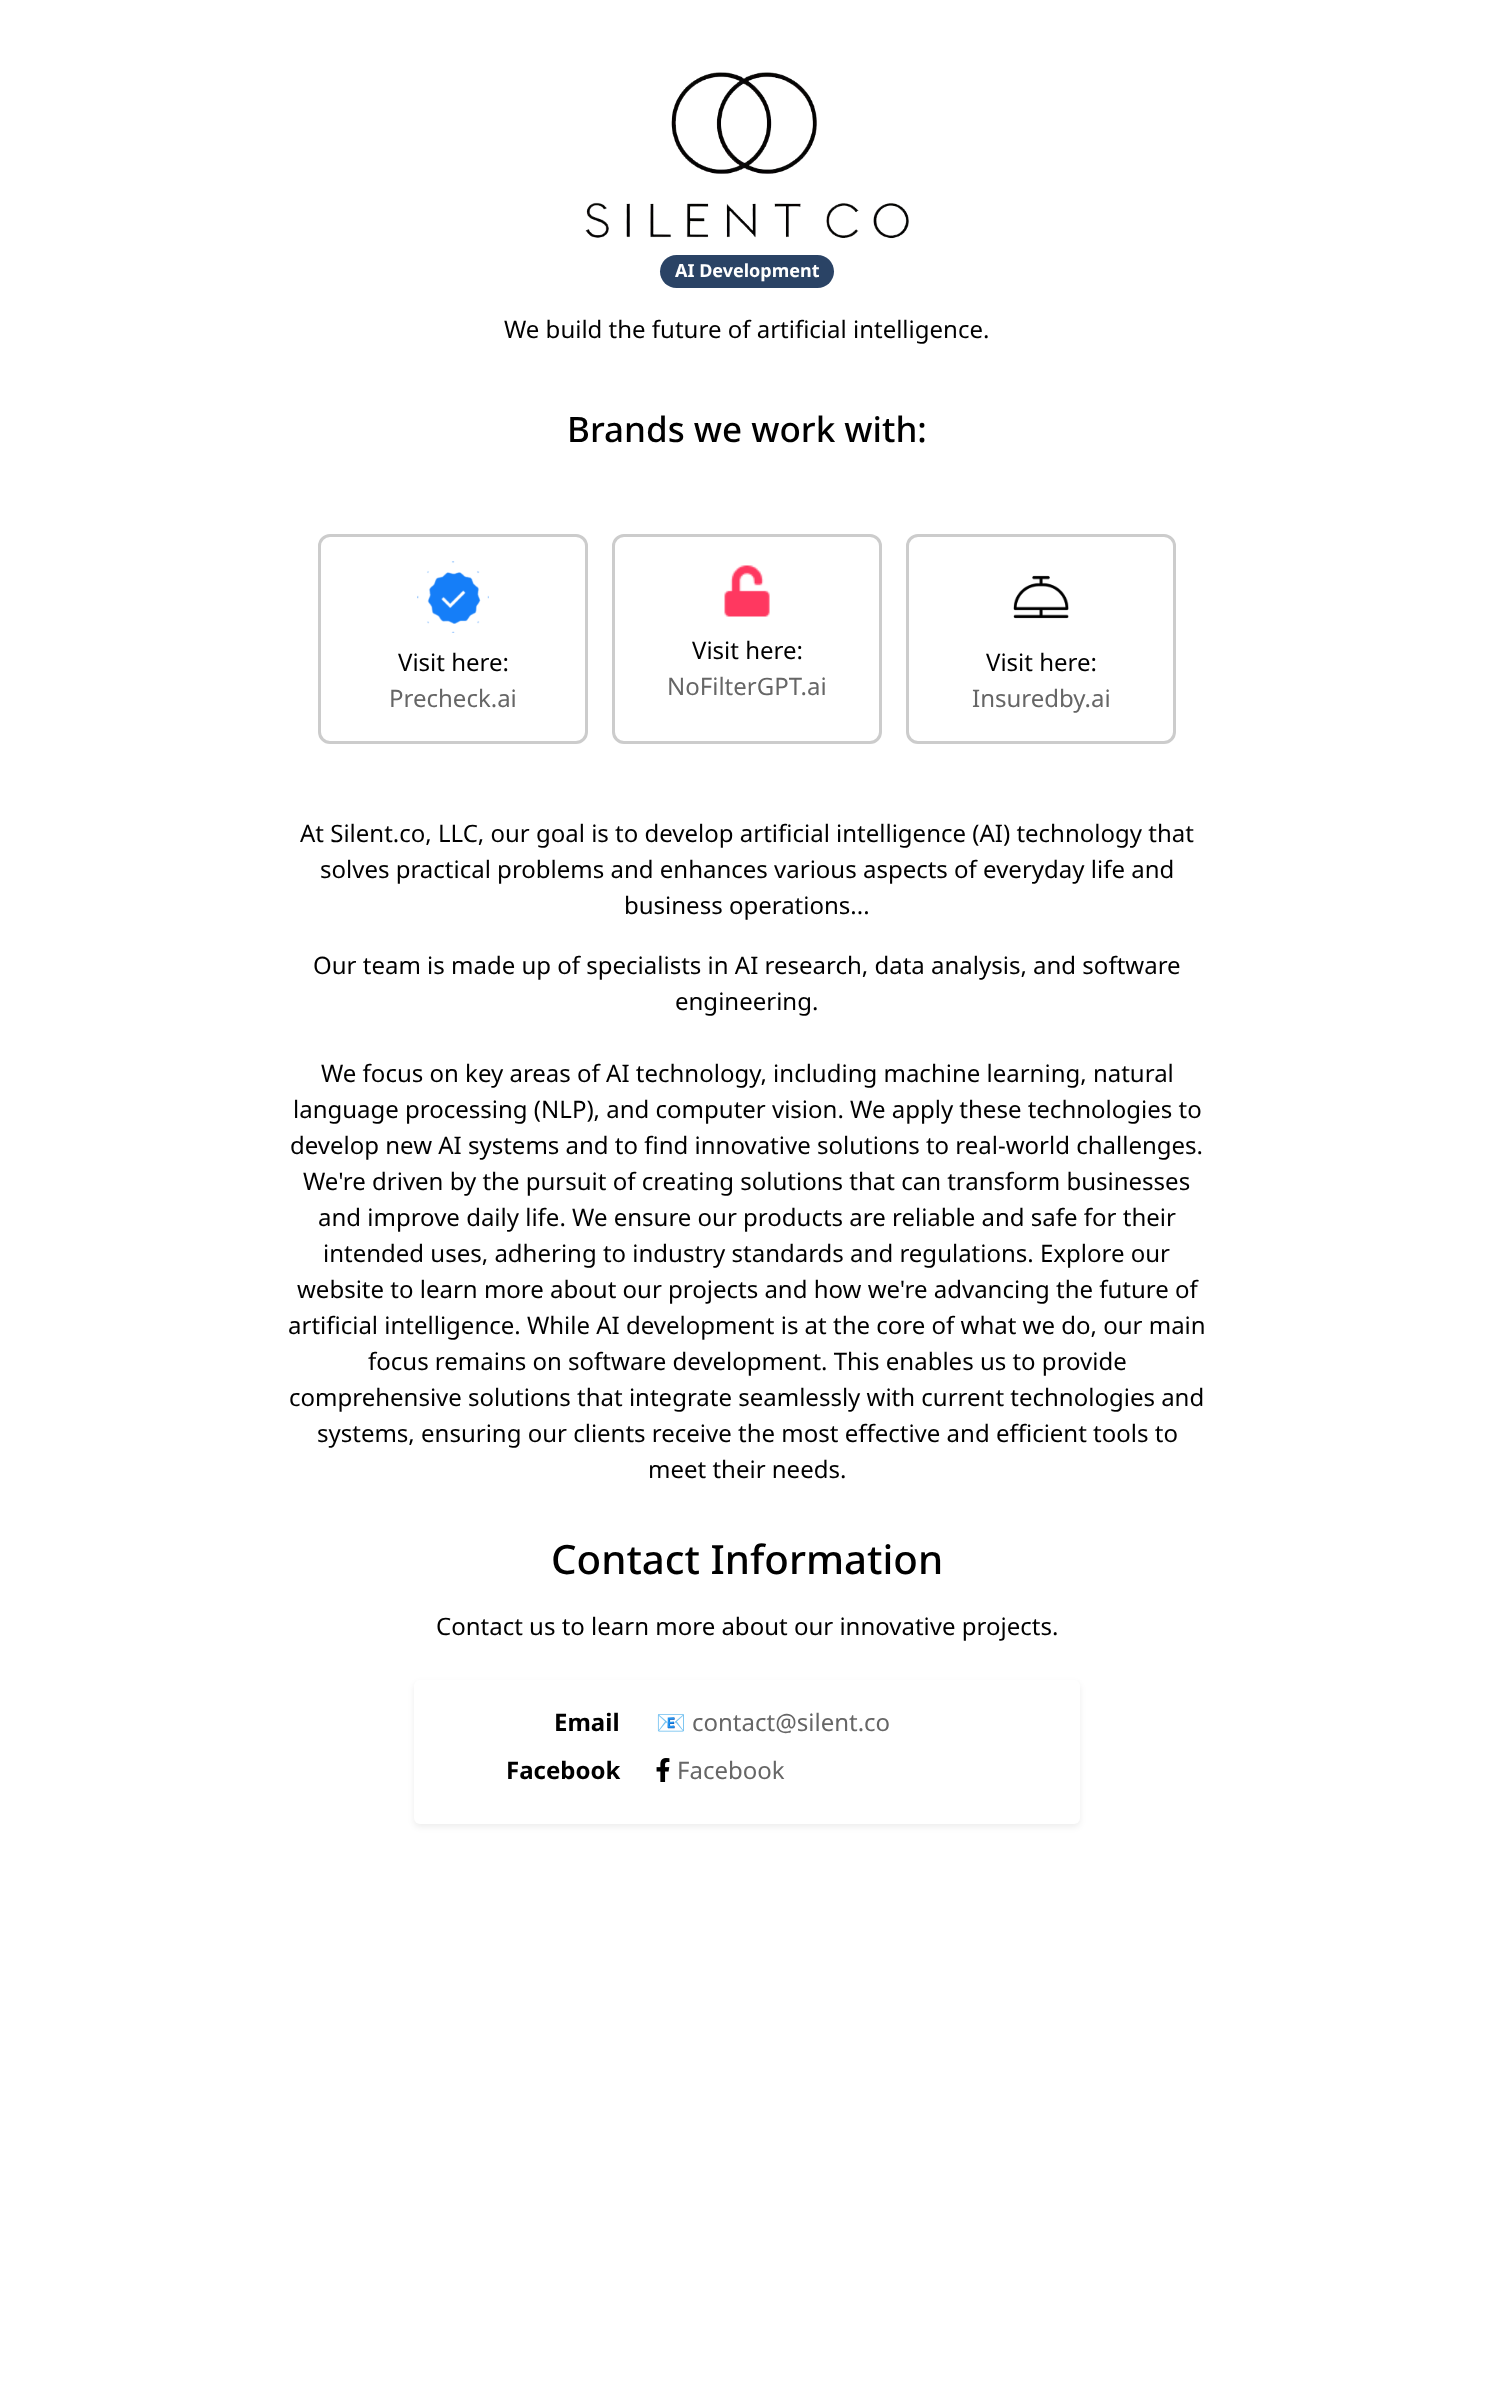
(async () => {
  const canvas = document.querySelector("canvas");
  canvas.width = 1494;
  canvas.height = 2395;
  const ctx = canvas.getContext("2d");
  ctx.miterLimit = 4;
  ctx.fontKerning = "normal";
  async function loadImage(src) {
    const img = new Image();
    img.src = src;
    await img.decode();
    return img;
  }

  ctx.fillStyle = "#ffffff";
  ctx.fillRect(0, 0, 1494, 2395);
  ctx.drawImage(await loadImage("img/1.png"), 585, 72, 324, 167);
  ctx.fillStyle = "#2a4365";
  ctx.beginPath();
  ctx.roundRect(660, 255, 174, 33, 16.5);
  ctx.fill();
  ctx.beginPath();
  ctx.roundRect(319.5, 535.5, 267, 207, 10.5);
  ctx.strokeStyle = "#cccccc";
  ctx.lineWidth = 3;
  ctx.stroke();
  ctx.drawImage(await loadImage("img/2.png"), 417, 561, 72, 72);
  ctx.beginPath();
  ctx.roundRect(613.5, 535.5, 267, 207, 10.5);
  ctx.stroke();
  ctx.drawImage(await loadImage("img/3.png"), 724, 565, 46, 52);
  ctx.beginPath();
  ctx.roundRect(907.5, 535.5, 267, 207, 10.5);
  ctx.stroke();
  ctx.drawImage(await loadImage("img/4.png"), 1013, 575, 56, 44);
  ctx.fillStyle = "rgba(0, 0, 0, 0.07)";
  ctx.filter = "blur(3px)";
  ctx.beginPath();
  ctx.roundRect(414, 1683, 666, 144, 6);
  ctx.fill();
  ctx.filter = "none";
  ctx.fillStyle = "#ffffff";
  ctx.beginPath();
  ctx.roundRect(414, 1680, 666, 144, 6);
  ctx.fill();
  ctx.drawImage(await loadImage("img/5.png"), 656, 1758, 14, 24);
  ctx.font = "bold 18px Noto Sans";
  ctx.fillText("AI Development", 675, 277);
  ctx.font = "24px Noto Sans";
  ctx.fillStyle = "#000000";
  ctx.fillText("We build the future of artificial intelligence.", 504, 338);
  ctx.font = "500 35px Noto Sans";
  ctx.fillText("Brands we work with:", 567, 442);
  ctx.font = "24px Noto Sans";
  ctx.fillText("Visit here:", 398, 671);
  ctx.fillStyle = "#666666";
  ctx.fillText("Precheck.ai", 389, 707);
  ctx.fillStyle = "#000000";
  ctx.fillText("Visit here:", 692, 659);
  ctx.fillStyle = "#666666";
  ctx.fillText("NoFilterGPT.ai", 667, 695);
  ctx.fillStyle = "#000000";
  ctx.fillText("Visit here:", 986, 671);
  ctx.fillStyle = "#666666";
  ctx.fillText("Insuredby.ai", 972, 707);
  ctx.fillStyle = "#000000";
  for (const [text, x, y] of [
    ["At Silent.co, LLC, our goal is to develop artificial intelligence (AI) technology that", 300, 842],
    ["solves practical problems and enhances various aspects of everyday life and", 320, 878],
    ["business operations...", 624, 914],
    ["Our team is made up of specialists in AI research, data analysis, and software", 313, 974],
    ["engineering.", 675, 1010],
    ["We focus on key areas of AI technology, including machine learning, natural", 321, 1082],
    ["language processing (NLP), and computer vision. We apply these technologies to", 293, 1118],
    ["develop new AI systems and to find innovative solutions to real-world challenges.", 290, 1154],
    ["We're driven by the pursuit of creating solutions that can transform businesses", 303, 1190],
    ["and improve daily life. We ensure our products are reliable and safe for their", 318, 1226],
    ["intended uses, adhering to industry standards and regulations. Explore our", 323, 1262],
    ["website to learn more about our projects and how we're advancing the future of", 297, 1298],
    ["artificial intelligence. While AI development is at the core of what we do, our main", 288, 1334],
    ["focus remains on software development. This enables us to provide", 368, 1370],
    ["comprehensive solutions that integrate seamlessly with current technologies and", 289, 1406],
    ["systems, ensuring our clients receive the most effective and efficient tools to", 317, 1442],
    ["meet their needs.", 648, 1478],
  ]) {
    ctx.fillText(text, x, y);
  }
  ctx.font = "500 40.25px Noto Sans";
  ctx.fillText("Contact Information", 551, 1574);
  ctx.font = "24px Noto Sans";
  ctx.fillText("Contact us to learn more about our innovative projects.", 436, 1635);
  ctx.font = "bold 24px Noto Sans";
  ctx.fillText("Email", 554, 1731);
  ctx.font = "24px Noto Color Emoji";
  ctx.fillStyle = "#666666";
  ctx.fillText("📧", 656, 1731);
  ctx.font = "24px Noto Sans";
  ctx.fillText("contact@silent.co", 692, 1731);
  ctx.font = "bold 24px Noto Sans";
  ctx.fillStyle = "#000000";
  ctx.fillText("Facebook", 506, 1779);
  ctx.font = "24px Noto Sans";
  ctx.fillStyle = "#666666";
  ctx.fillText("Facebook", 677, 1779);
})();
